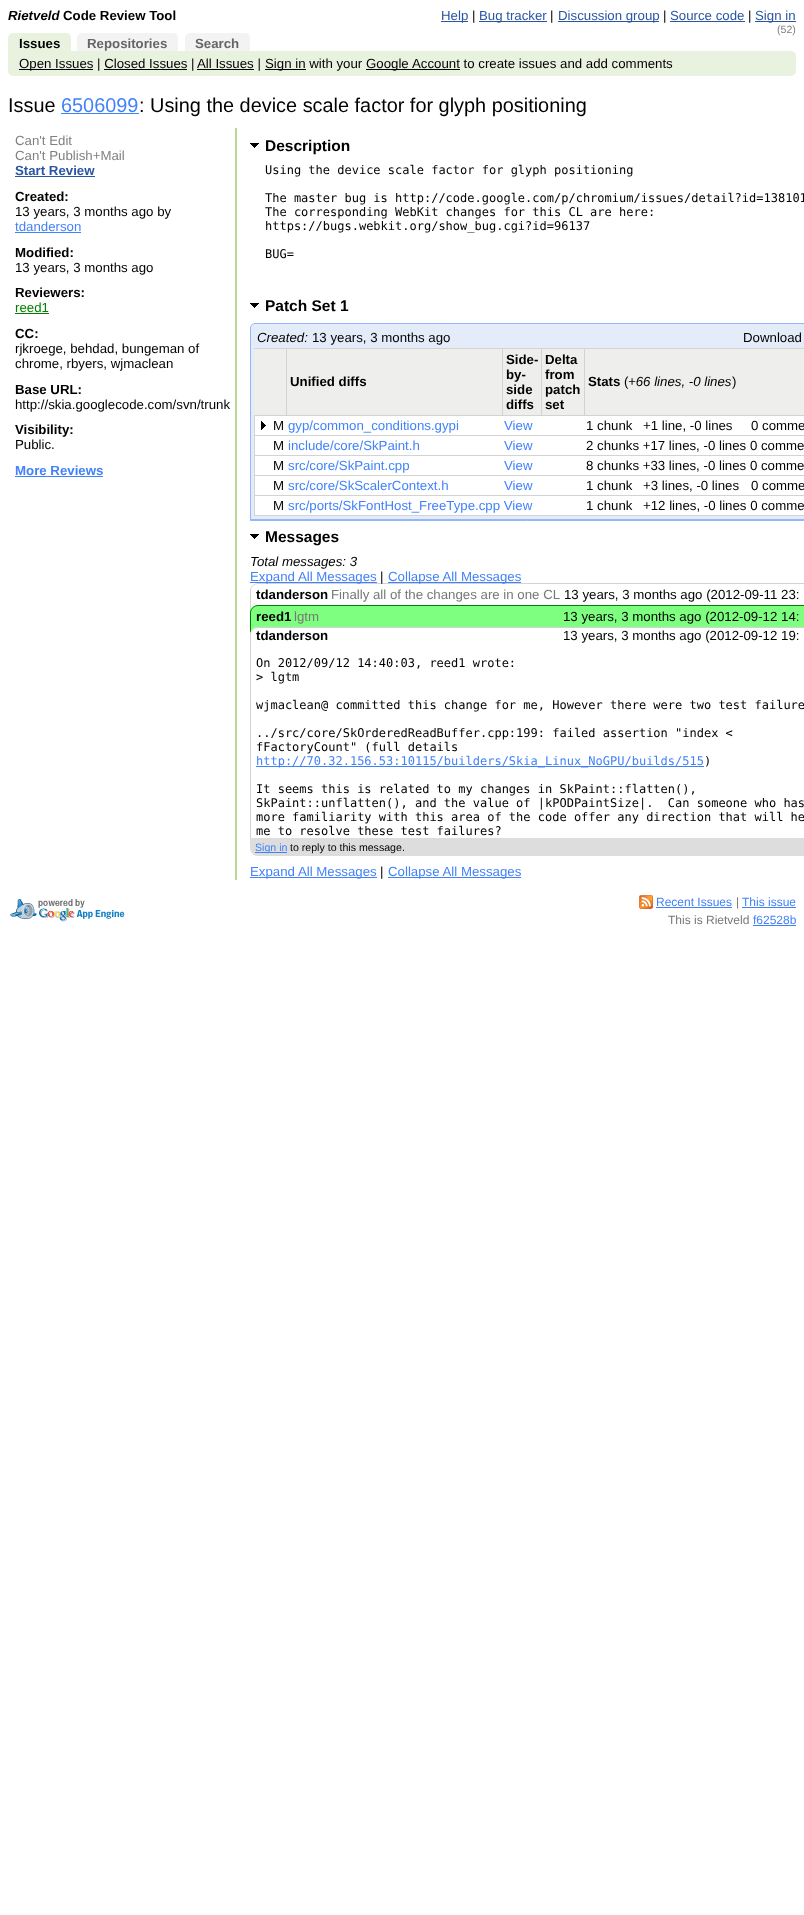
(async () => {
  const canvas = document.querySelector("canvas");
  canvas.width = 804;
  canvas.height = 1915;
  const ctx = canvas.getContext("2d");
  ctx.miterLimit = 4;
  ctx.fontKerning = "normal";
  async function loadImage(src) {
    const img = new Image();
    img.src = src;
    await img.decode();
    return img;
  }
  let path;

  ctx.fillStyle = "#ffffff";
  ctx.fillRect(0, 0, 804, 1915);
  for (const [x, y, w, h, color] of [
    [441, 21, 27, 1, "#2a55a3"],
    [479, 21, 68, 1, "#2a55a3"],
    [558, 21, 101, 1, "#2a55a3"],
    [670, 21, 75, 1, "#2a55a3"],
    [755, 21, 41, 1, "#2a55a3"],
  ]) {
    ctx.fillStyle = color;
    ctx.fillRect(x, y, w, h);
  }
  ctx.fillStyle = "#e9f2df";
  ctx.beginPath();
  ctx.roundRect(8, 33, 63, 18, [5, 5, 0, 0]);
  ctx.fill();
  ctx.fillStyle = "#f3f3f3";
  ctx.beginPath();
  ctx.roundRect(77, 33, 101, 18, [5, 5, 0, 0]);
  ctx.fill();
  ctx.beginPath();
  ctx.roundRect(185, 33, 65, 18, [5, 5, 0, 0]);
  ctx.fill();
  ctx.fillStyle = "#e9f2df";
  ctx.beginPath();
  ctx.roundRect(8, 51, 788, 25, [0, 5, 5, 5]);
  ctx.fill();
  for (const [x, y, w, h, color] of [
    [19, 69, 74, 1, "#000000"],
    [197, 69, 57, 1, "#000000"],
    [265, 69, 41, 1, "#000000"],
    [366, 69, 94, 1, "#000000"],
    [104, 69, 83, 1, "#000000"],
    [61, 113, 78, 1, "#4182fa"],
    [235, 128, 2, 752, "#b7d993"],
    [15, 176, 80, 1, "#2a55a3"],
    [15, 232, 66, 1, "#4182fa"],
    [15, 313, 34, 1, "#008000"],
    [15, 476, 88, 1, "#4182fa"],
  ]) {
    ctx.fillStyle = color;
    ctx.fillRect(x, y, w, h);
  }
  ctx.drawImage(await loadImage("img/1.png"), 250, 143, 9, 5);
  ctx.drawImage(await loadImage("img/1.png"), 250, 303, 9, 5);
  ctx.fillStyle = "#e5ecf9";
  path = new Path2D("M255 324H804C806 324 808 326 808 328V519H251V328C251 326 253 324 255 324Z");
  ctx.fill(path);
  path = new Path2D("M255 323.5H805C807.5 323.5 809.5 325.5 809.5 328V520.5H250.5V328C250.5 325.5 252.5 323.5 255 323.5Z");
  ctx.strokeStyle = "#93b7fa";
  ctx.stroke(path);
  for (const [x, y, w, h, color] of [
    [250, 519, 554, 1, "#93b7fa"],
    [255, 416, 549, 99, "#ffffff"],
    [254, 415, 550, 1, "#d3d3d3"],
    [254, 349, 32, 66, "#eeeeec"],
    [254, 348, 550, 1, "#d3d3d3"],
    [286, 348, 1, 68, "#d3d3d3"],
    [287, 349, 215, 66, "#eeeeec"],
    [502, 348, 1, 68, "#d3d3d3"],
    [503, 349, 38, 66, "#eeeeec"],
    [541, 348, 1, 68, "#d3d3d3"],
    [542, 349, 42, 66, "#eeeeec"],
    [584, 348, 1, 68, "#d3d3d3"],
    [585, 349, 219, 66, "#eeeeec"],
    [254, 435, 550, 1, "#d3d3d3"],
  ]) {
    ctx.fillStyle = color;
    ctx.fillRect(x, y, w, h);
  }
  ctx.drawImage(await loadImage("img/2.png"), 261, 421, 5, 9);
  for (const [x, y, w, h, color] of [
    [254, 455, 550, 1, "#d3d3d3"],
    [254, 475, 550, 1, "#d3d3d3"],
    [254, 495, 550, 1, "#d3d3d3"],
    [254, 515, 550, 1, "#d3d3d3"],
    [254, 415, 1, 101, "#d3d3d3"],
  ]) {
    ctx.fillStyle = color;
    ctx.fillRect(x, y, w, h);
  }
  ctx.drawImage(await loadImage("img/1.png"), 250, 534, 9, 5);
  ctx.fillStyle = "#4182fa";
  ctx.fillRect(250, 582, 127, 1);
  ctx.fillRect(388, 582, 133, 1);
  ctx.fillStyle = "#d3d3d3";
  path = new Path2D("M258 583H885C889 583 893 587 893 591V613H250V591C250 587 254 583 258 583ZM258 584H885C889 584 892 587 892 591V613H251V591C251 587 254 584 258 584Z");
  ctx.fill(path, "evenodd");
  ctx.fillStyle = "#7fff7f";
  path = new Path2D("M258 605H804C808.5 605 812 608.5 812 613V635H250V613C250 608.5 253.5 605 258 605Z");
  ctx.fill(path);
  ctx.fillStyle = "#008000";
  path = new Path2D("M258 605H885C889 605 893 609 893 613V635H250V613C250 609 254 605 258 605ZM258 606H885C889 606 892 609 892 613V635H251V613C251 609 254 606 258 606Z");
  ctx.fill(path, "evenodd");
  ctx.fillStyle = "#ffffff";
  path = new Path2D("M258 627H804C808.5 627 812 630.5 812 635V656H250V635C250 630.5 253.5 627 258 627Z");
  ctx.fill(path);
  ctx.fillStyle = "#d3d3d3";
  path = new Path2D("M258 627H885C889 627 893 631 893 635V656H250V635C250 631 254 627 258 627ZM258 628H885C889 628 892 631 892 635V656H251V635C251 631 254 628 258 628Z");
  ctx.fill(path, "evenodd");
  ctx.fillRect(250, 656, 1, 182);
  ctx.fillStyle = "#4182fa";
  ctx.fillRect(256, 766, 448, 1);
  ctx.fillStyle = "#dddddd";
  path = new Path2D("M250 838H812V848C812 852.5 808.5 856 804 856H258C253.5 856 250 852.5 250 848Z");
  ctx.fill(path);
  for (const [x, y, w, h, color] of [
    [255, 852, 32, 1, "#4182fa"],
    [250, 877, 127, 1, "#4182fa"],
    [388, 877, 133, 1, "#4182fa"],
  ]) {
    ctx.fillStyle = color;
    ctx.fillRect(x, y, w, h);
  }
  ctx.drawImage(await loadImage("img/3.png"), 10, 899, 115, 23);
  ctx.drawImage(await loadImage("img/4.png"), 639, 895, 14, 14);
  for (const [x, y, w, h, color] of [
    [656, 907, 76, 1, "#4182fa"],
    [742, 907, 54, 1, "#4182fa"],
    [753, 925, 43, 1, "#4182fa"],
  ]) {
    ctx.fillStyle = color;
    ctx.fillRect(x, y, w, h);
  }
  ctx.font = "italic bold 13.25px Liberation Sans";
  ctx.fillStyle = "#000000";
  ctx.fillText("Rietveld", 8, 20);
  ctx.font = "bold 13.25px Liberation Sans";
  ctx.fillText("Code Review Tool", 63, 20);
  ctx.font = "13.25px Liberation Sans";
  ctx.fillStyle = "#2a55a3";
  ctx.fillText("Help", 441, 20);
  ctx.fillStyle = "#000000";
  ctx.fillText("|", 472, 20);
  ctx.fillStyle = "#2a55a3";
  ctx.fillText("Bug tracker", 479, 20);
  ctx.fillStyle = "#000000";
  ctx.fillText("|", 550, 20);
  ctx.fillStyle = "#2a55a3";
  ctx.fillText("Discussion group", 558, 20);
  ctx.fillStyle = "#000000";
  ctx.fillText("|", 663, 20);
  ctx.fillStyle = "#2a55a3";
  ctx.fillText("Source code", 670, 20);
  ctx.fillStyle = "#000000";
  ctx.fillText("|", 748, 20);
  ctx.fillStyle = "#2a55a3";
  ctx.fillText("Sign in", 755, 20);
  ctx.font = "10.6px Liberation Sans";
  ctx.fillStyle = "#808080";
  ctx.fillText("(52)", 777, 33);
  ctx.font = "bold 13.25px Liberation Sans";
  ctx.fillStyle = "#000000";
  ctx.fillText("Issues", 19, 48);
  ctx.fillStyle = "#666666";
  ctx.fillText("Repositories", 87, 48);
  ctx.fillText("Search", 195, 48);
  ctx.font = "13.25px Liberation Sans";
  ctx.fillStyle = "#000000";
  for (const [text, x, y] of [
    ["Open Issues | Closed Issues |", 19, 68],
    ["All Issues |", 197, 68],
    ["Sign in with your", 265, 68],
    ["Google", 366, 68],
    ["Account to create issues and add comments", 412, 68],
  ]) {
    ctx.fillText(text, x, y);
  }
  ctx.font = "19.9px Liberation Sans";
  ctx.fillText("Issue", 8, 112);
  ctx.fillStyle = "#4182fa";
  ctx.fillText("6506099", 61, 112);
  ctx.fillStyle = "#000000";
  ctx.fillText(": Using the device scale factor for glyph positioning", 139, 112);
  ctx.font = "13.25px Liberation Sans";
  ctx.fillStyle = "#808080";
  ctx.fillText("Can't Edit", 15, 145);
  ctx.fillText("Can't Publish+Mail", 15, 160);
  ctx.font = "bold 13.25px Liberation Sans";
  ctx.fillStyle = "#2a55a3";
  ctx.fillText("Start Review", 15, 175);
  ctx.fillStyle = "#000000";
  ctx.fillText("Created:", 15, 201);
  ctx.font = "13.25px Liberation Sans";
  ctx.fillText("13 years, 3 months ago by", 15, 216);
  ctx.fillStyle = "#4182fa";
  ctx.fillText("tdanderson", 15, 231);
  ctx.font = "bold 13.25px Liberation Sans";
  ctx.fillStyle = "#000000";
  ctx.fillText("Modified:", 15, 257);
  ctx.font = "13.25px Liberation Sans";
  ctx.fillText("13 years, 3 months ago", 15, 272);
  ctx.font = "bold 13.25px Liberation Sans";
  ctx.fillText("Reviewers:", 15, 297);
  ctx.font = "13.25px Liberation Sans";
  ctx.fillStyle = "#008000";
  ctx.fillText("reed1", 15, 312);
  ctx.font = "bold 13.25px Liberation Sans";
  ctx.fillStyle = "#000000";
  ctx.fillText("CC:", 15, 338);
  ctx.font = "13.25px Liberation Sans";
  ctx.fillText("rjkroege, behdad, bungeman of", 15, 353);
  ctx.fillText("chrome, rbyers, wjmaclean", 15, 368);
  ctx.font = "bold 13.25px Liberation Sans";
  ctx.fillText("Base URL:", 15, 394);
  ctx.font = "13.25px Liberation Sans";
  ctx.fillText("http://skia.googlecode.com/svn/trunk", 15, 409);
  ctx.font = "bold 13.25px Liberation Sans";
  ctx.fillText("Visibility:", 15, 434);
  ctx.font = "13.25px Liberation Sans";
  ctx.fillText("Public.", 15, 449);
  ctx.font = "bold 13.25px Liberation Sans";
  ctx.fillStyle = "#4182fa";
  ctx.fillText("More Reviews", 15, 475);
  ctx.font = "bold 15.5px Liberation Sans";
  ctx.fillStyle = "#000000";
  ctx.fillText("Description", 265, 151);
  ctx.font = "12px DejaVu Sans Mono";
  for (const [text, x, y] of [
    ["Using the device scale factor for glyph positioning", 265, 174],
    ["The master bug is http://code.google.com/p/chromium/issues/detail?id=138101", 265, 202],
    ["The corresponding WebKit changes for this CL are here:", 265, 216],
    ["https://bugs.webkit.org/show_bug.cgi?id=96137", 265, 230],
    ["BUG=", 265, 258],
  ]) {
    ctx.fillText(text, x, y);
  }
  ctx.font = "bold 15.5px Liberation Sans";
  ctx.fillText("Patch Set 1", 265, 311);
  ctx.font = "italic 13.25px Liberation Sans";
  ctx.fillText("Created:", 257, 342);
  ctx.font = "13.25px Liberation Sans";
  ctx.fillText("13 years, 3 months ago", 312, 342);
  ctx.fillText("Download", 743, 342);
  ctx.font = "bold 13.25px Liberation Sans";
  for (const [text, x, y] of [
    ["Unified diffs", 290, 386],
    ["Side-", 506, 364],
    ["by-", 506, 379],
    ["side", 506, 394],
    ["diffs", 506, 409],
    ["Delta", 545, 364],
    ["from", 545, 379],
    ["patch", 545, 394],
    ["set", 545, 409],
    ["Stats", 588, 386],
  ]) {
    ctx.fillText(text, x, y);
  }
  ctx.font = "13.25px Liberation Sans";
  ctx.fillText("(", 624, 386);
  ctx.font = "italic 13.25px Liberation Sans";
  ctx.fillText("+66 lines, -0 lines", 628, 386);
  ctx.font = "13.25px Liberation Sans";
  ctx.fillText(")", 732, 386);
  ctx.fillText("M", 273, 430);
  ctx.fillStyle = "#4182fa";
  ctx.fillText("gyp/common_conditions.gypi", 288, 430);
  ctx.fillText("View", 504, 430);
  ctx.fillStyle = "#000000";
  for (const [text, x, y] of [
    ["1 chunk", 586, 430],
    ["+1 line, -0 lines", 643, 430],
    ["0 comme", 751, 430],
    ["M", 273, 450],
  ]) {
    ctx.fillText(text, x, y);
  }
  ctx.fillStyle = "#4182fa";
  ctx.fillText("include/core/SkPaint.h", 288, 450);
  ctx.fillText("View", 504, 450);
  ctx.fillStyle = "#000000";
  ctx.fillText("2 chunks +17 lines, -0 lines 0 comme", 586, 450);
  ctx.fillText("M", 273, 470);
  ctx.fillStyle = "#4182fa";
  ctx.fillText("src/core/SkPaint.cpp", 288, 470);
  ctx.fillText("View", 504, 470);
  ctx.fillStyle = "#000000";
  ctx.fillText("8 chunks +33 lines, -0 lines 0 comme", 586, 470);
  ctx.fillText("M", 273, 490);
  ctx.fillStyle = "#4182fa";
  ctx.fillText("src/core/SkScalerContext.h", 288, 490);
  ctx.fillText("View", 504, 490);
  ctx.fillStyle = "#000000";
  for (const [text, x, y] of [
    ["1 chunk", 586, 490],
    ["+3 lines, -0 lines", 643, 490],
    ["0 comme", 751, 490],
    ["M", 273, 510],
  ]) {
    ctx.fillText(text, x, y);
  }
  ctx.fillStyle = "#4182fa";
  ctx.fillText("src/ports/SkFontHost_FreeType.cpp View", 288, 510);
  ctx.fillStyle = "#000000";
  ctx.fillText("1 chunk", 586, 510);
  ctx.fillText("+12 lines, -0 lines 0 comme", 643, 510);
  ctx.font = "bold 15.5px Liberation Sans";
  ctx.fillText("Messages", 265, 542);
  ctx.font = "italic 13.25px Liberation Sans";
  ctx.fillText("Total messages: 3", 250, 566);
  ctx.font = "13.25px Liberation Sans";
  ctx.fillStyle = "#4182fa";
  ctx.fillText("Expand All Messages", 250, 581);
  ctx.fillStyle = "#000000";
  ctx.fillText("|", 380, 581);
  ctx.fillStyle = "#4182fa";
  ctx.fillText("Collapse All Messages", 388, 581);
  ctx.font = "bold 13.25px Liberation Sans";
  ctx.fillStyle = "#000000";
  ctx.fillText("tdanderson", 256, 599);
  ctx.font = "13.25px Liberation Sans";
  ctx.fillStyle = "#777777";
  ctx.fillText("Finally all of the changes are in one CL", 331, 599);
  ctx.fillStyle = "#000000";
  ctx.fillText("13 years, 3 months ago (2012-09-11 23:", 564, 599);
  ctx.font = "bold 13.25px Liberation Sans";
  ctx.fillText("reed1", 256, 621);
  ctx.font = "13.25px Liberation Sans";
  ctx.fillStyle = "#777777";
  ctx.fillText("lgtm", 294, 621);
  ctx.fillStyle = "#000000";
  ctx.fillText("13 years, 3 months ago (2012-09-12 14:", 563, 621);
  ctx.font = "bold 13.25px Liberation Sans";
  ctx.fillText("tdanderson", 256, 640);
  ctx.font = "13.25px Liberation Sans";
  ctx.fillText("13 years, 3 months ago (2012-09-12 19:", 563, 640);
  ctx.font = "12px DejaVu Sans Mono";
  for (const [text, x, y] of [
    ["On 2012/09/12 14:40:03, reed1 wrote:", 256, 667],
    ["> lgtm", 256, 681],
    ["wjmaclean@ committed this change for me, However there were two test failure", 256, 709],
    ["../src/core/SkOrderedReadBuffer.cpp:199: failed assertion \"index <", 256, 737],
    ["fFactoryCount\" (full details", 256, 751],
  ]) {
    ctx.fillText(text, x, y);
  }
  ctx.fillStyle = "#4182fa";
  ctx.fillText("http://70.32.156.53:10115/builders/Skia_Linux_NoGPU/builds/515", 256, 765);
  ctx.fillStyle = "#000000";
  for (const [text, x, y] of [
    [")", 704, 765],
    ["It seems this is related to my changes in SkPaint::flatten(),", 256, 793],
    ["SkPaint::unflatten(), and the value of |kPODPaintSize|.  Can someone who has", 256, 807],
    ["more familiarity with this area of the code offer any direction that will he", 256, 821],
    ["me to resolve these test failures?", 256, 835],
  ]) {
    ctx.fillText(text, x, y);
  }
  ctx.font = "10.6px Liberation Sans";
  ctx.fillStyle = "#4182fa";
  ctx.fillText("Sign in", 255, 851);
  ctx.fillStyle = "#000000";
  ctx.fillText("to reply to this message.", 290, 851);
  ctx.font = "13.25px Liberation Sans";
  ctx.fillStyle = "#4182fa";
  ctx.fillText("Expand All Messages", 250, 876);
  ctx.fillStyle = "#000000";
  ctx.fillText("|", 380, 876);
  ctx.fillStyle = "#4182fa";
  ctx.fillText("Collapse All Messages", 388, 876);
  ctx.font = "12px Liberation Sans";
  ctx.fillText("Recent Issues", 656, 906);
  ctx.fillStyle = "#777777";
  ctx.fillText("|", 736, 906);
  ctx.fillStyle = "#4182fa";
  ctx.fillText("This issue", 742, 906);
  ctx.fillStyle = "#777777";
  ctx.fillText("This is Rietveld", 668, 924);
  ctx.fillStyle = "#4182fa";
  ctx.fillText("f62528b", 753, 924);
})();
